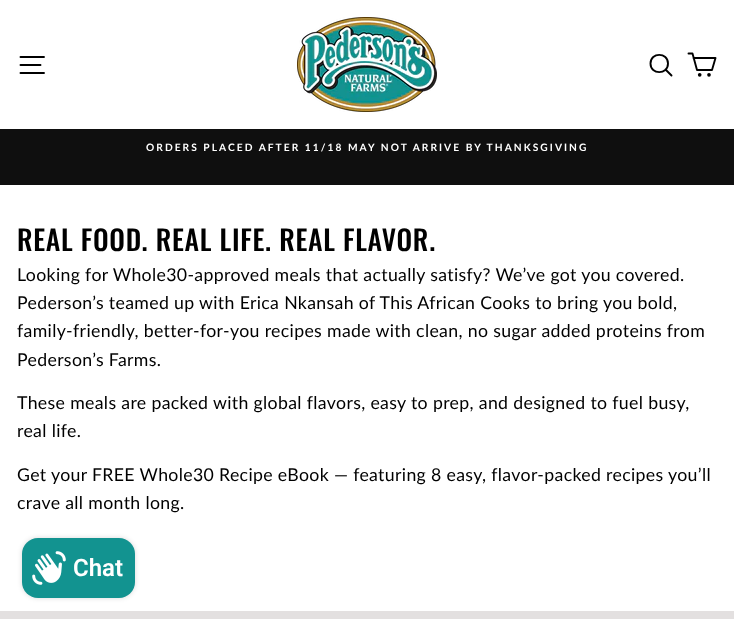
(async () => {
  const canvas = document.querySelector("canvas");
  canvas.width = 734;
  canvas.height = 619;
  const ctx = canvas.getContext("2d");
  ctx.miterLimit = 4;
  ctx.fontKerning = "normal";
  async function loadImage(src) {
    const img = new Image();
    img.src = src;
    await img.decode();
    return img;
  }
  let path;

  ctx.fillStyle = "#ffffff";
  ctx.fillRect(0, 0, 734, 619);
  path = new Path2D("M20.5 57H44M20.5 65H40.5M20.5 73H44");
  ctx.strokeStyle = "#000000";
  ctx.lineWidth = 1.9;
  ctx.lineCap = "round";
  ctx.lineJoin = "round";
  ctx.stroke(path);
  ctx.drawImage(await loadImage("img/1.png"), 297, 17, 140, 95);
  path = new Path2D("M668 63.5C668 75 650.5 75 650.5 63.5C650.5 52 668 52 668 63.5ZM671.5 75.5L665.5 69.5");
  ctx.stroke(path);
  path = new Path2D("M693.5 58H715.5L712 70H697L692.5 53.5H688.5");
  ctx.stroke(path);
  ctx.beginPath();
  ctx.arc(699.7, 74.8, 0.9, 0, Math.PI * 2);
  ctx.stroke();
  ctx.beginPath();
  ctx.arc(709, 74.8, 0.9, 0, Math.PI * 2);
  ctx.stroke();
  ctx.fillStyle = "#0f0f0f";
  ctx.fillRect(0, 129, 734, 56);
  ctx.fillStyle = "#e3e0e0";
  ctx.fillRect(0, 611, 734, 8);
  ctx.fillStyle = "rgba(0, 0, 0, 0.15)";
  ctx.filter = "blur(2.5px)";
  ctx.beginPath();
  ctx.roundRect(22, 538, 113, 60, 16);
  ctx.fill();
  ctx.filter = "none";
  ctx.fillStyle = "#129390";
  ctx.beginPath();
  ctx.roundRect(22, 538, 113, 60, 16);
  ctx.fill();
  ctx.drawImage(await loadImage("img/2.png"), 32, 551, 34, 34);
  ctx.letterSpacing = "2.05px";
  ctx.font = "bold 10.2px Lato";
  ctx.fillStyle = "#ffffff";
  ctx.fillText("ORDERS PLACED AFTER 11/18 MAY NOT ARRIVE BY THANKSGIVING", 146, 151);
  ctx.letterSpacing = "0.7px";
  ctx.font = "500 27.75px Oswald";
  ctx.fillStyle = "#000000";
  ctx.fillText("REAL FOOD. REAL LIFE. REAL FLAVOR.", 17, 251);
  ctx.letterSpacing = "0.35px";
  ctx.font = "17.7px Lato";
  for (const [text, x, y] of [
    ["Looking for Whole30-approved meals that actually satisfy? We’ve got you covered.", 17, 281],
    ["Pederson’s teamed up with Erica Nkansah of This African Cooks to bring you bold,", 17, 309],
    ["family-friendly, better-for-you recipes made with clean, no sugar added proteins from", 17, 337],
    ["Pederson’s Farms.", 17, 366],
    ["These meals are packed with global flavors, easy to prep, and designed to fuel busy,", 17, 409],
    ["real life.", 17, 437],
    ["Get your FREE Whole30 Recipe eBook — featuring 8 easy, flavor-packed recipes you’ll", 17, 481],
    ["crave all month long.", 17, 509],
  ]) {
    ctx.fillText(text, x, y);
  }
  ctx.letterSpacing = "0px";
  ctx.font = "600 24px Roboto";
  ctx.fillStyle = "#ffffff";
  ctx.fillText("Chat", 73, 576);
})();
